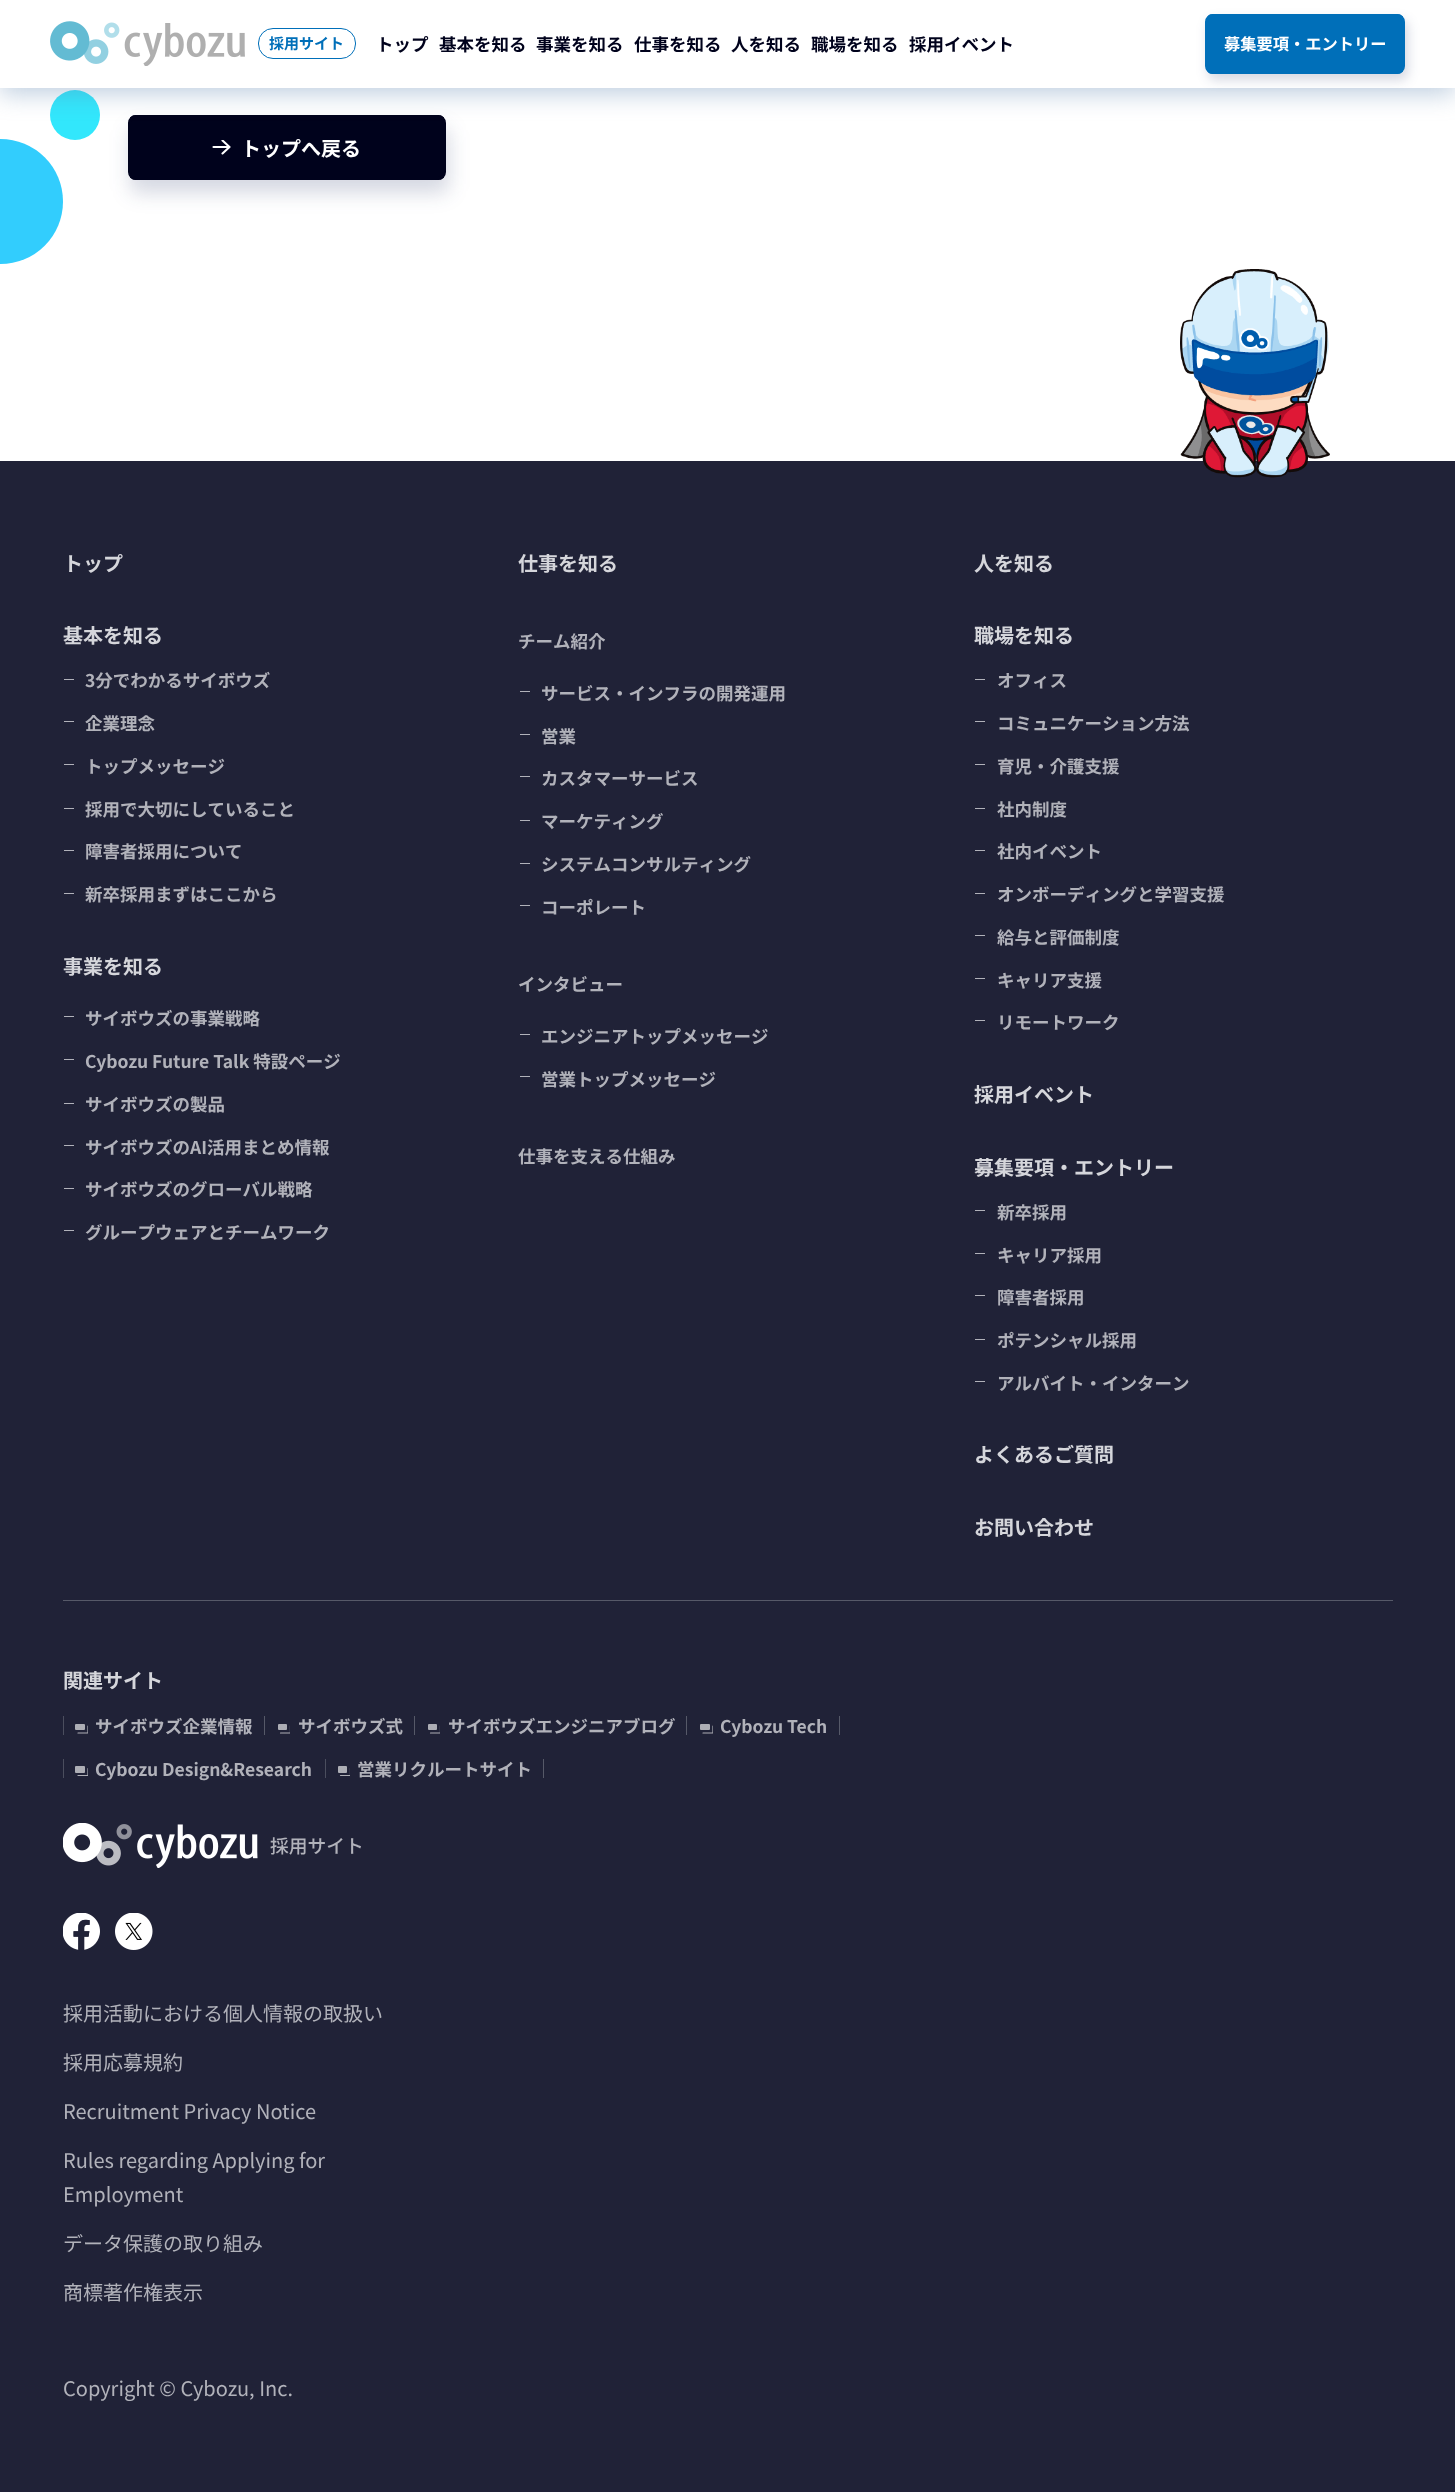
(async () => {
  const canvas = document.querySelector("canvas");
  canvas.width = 1455;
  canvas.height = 2492;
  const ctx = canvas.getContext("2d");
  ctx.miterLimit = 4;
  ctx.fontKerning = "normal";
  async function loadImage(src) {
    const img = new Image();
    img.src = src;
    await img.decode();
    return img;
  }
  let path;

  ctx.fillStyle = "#ffffff";
  ctx.fillRect(0, 0, 1455, 2492);
  ctx.fillStyle = "#32cdfd";
  ctx.beginPath();
  ctx.arc(0.5, 201.5, 62.5, 0, Math.PI * 2);
  ctx.fill();
  ctx.fillStyle = "#32e7fc";
  ctx.beginPath();
  ctx.arc(75, 115, 25, 0, Math.PI * 2);
  ctx.fill();
  ctx.fillStyle = "rgba(23, 39, 97, 0.18)";
  ctx.filter = "blur(10px)";
  ctx.beginPath();
  ctx.roundRect(130, 128, 319, 65, 8);
  ctx.fill();
  ctx.filter = "none";
  ctx.save();
  ctx.beginPath();
  ctx.roundRect(128, 115, 318, 65, 8);
  ctx.clip();
  ctx.fillStyle = "#00021c";
  ctx.fillRect(130, 115, 314, 65);
  ctx.restore();
  ctx.beginPath();
  ctx.roundRect(129.5, 116.5, 315, 62, 6.5);
  ctx.strokeStyle = "#00021c";
  ctx.lineWidth = 3;
  ctx.stroke();
  ctx.fillStyle = "rgba(94, 135, 178, 0.4)";
  ctx.filter = "blur(12.5px)";
  ctx.beginPath();
  ctx.rect(0, 6, 1455, 88);
  ctx.fill();
  ctx.filter = "none";
  ctx.fillStyle = "#ffffff";
  ctx.fillRect(0, 0, 1455, 88);
  ctx.drawImage(await loadImage("img/1.png"), 50, 21, 195, 45);
  ctx.beginPath();
  ctx.roundRect(258.5, 28.5, 97, 30, 14.5);
  ctx.strokeStyle = "#006fb9";
  ctx.lineWidth = 1;
  ctx.stroke();
  ctx.fillStyle = "rgba(23, 39, 97, 0.18)";
  ctx.filter = "blur(6px)";
  ctx.beginPath();
  ctx.roundRect(1208, 20, 200, 60, 8);
  ctx.fill();
  ctx.filter = "none";
  ctx.save();
  ctx.beginPath();
  ctx.roundRect(1205, 14, 200, 60, 8);
  ctx.clip();
  ctx.fillStyle = "#006fb9";
  ctx.fillRect(1208, 14, 195, 60);
  ctx.restore();
  ctx.beginPath();
  ctx.roundRect(1206.5, 15.5, 197, 57, 6.5);
  ctx.lineWidth = 3;
  ctx.stroke();
  path = new Path2D("M213.5 147H228.5");
  ctx.strokeStyle = "#ffffff";
  ctx.lineWidth = 2.1;
  ctx.lineCap = "round";
  ctx.stroke(path);
  ctx.save();
  ctx.beginPath();
  ctx.rect(213, 140, 18, 15);
  ctx.clip();
  path = new Path2D("M222.5 153.5L229.5 147L222.5 140.5");
  ctx.lineJoin = "round";
  ctx.stroke(path);
  ctx.restore();
  ctx.fillStyle = "#202237";
  ctx.fillRect(0, 461, 1455, 2031);
  ctx.drawImage(await loadImage("img/2.png"), 1180, 269, 150, 209);
  for (const [x, y, w, h, color] of [
    [64, 679, 10, 1, "#b1b2ba"],
    [64, 721, 10, 1, "#b1b2ba"],
    [64, 764, 10, 1, "#b1b2ba"],
    [64, 808, 10, 1, "#b1b2ba"],
    [64, 850, 10, 1, "#b1b2ba"],
    [64, 893, 10, 1, "#b1b2ba"],
    [64, 1016, 10, 1, "#b1b2ba"],
    [64, 1059, 10, 1, "#b1b2ba"],
    [64, 1103, 10, 1, "#b1b2ba"],
    [64, 1145, 10, 1, "#b1b2ba"],
    [64, 1188, 10, 1, "#b1b2ba"],
    [64, 1230, 10, 1, "#b1b2ba"],
    [520, 691, 10, 1, "#b1b2ba"],
    [520, 734, 10, 1, "#b1b2ba"],
    [520, 776, 10, 1, "#b1b2ba"],
    [520, 820, 10, 1, "#b1b2ba"],
    [520, 863, 10, 1, "#b1b2ba"],
    [520, 905, 10, 1, "#b1b2ba"],
    [520, 1034, 10, 1, "#b1b2ba"],
    [520, 1076, 10, 1, "#b1b2ba"],
    [975, 679, 10, 1, "#b1b2ba"],
    [975, 721, 10, 1, "#b1b2ba"],
    [975, 764, 10, 1, "#b1b2ba"],
    [975, 808, 10, 1, "#b1b2ba"],
    [975, 850, 10, 1, "#b1b2ba"],
    [975, 893, 10, 1, "#b1b2ba"],
    [975, 935, 10, 1, "#b1b2ba"],
    [975, 978, 10, 1, "#b1b2ba"],
    [975, 1020, 10, 1, "#b1b2ba"],
    [975, 1210, 10, 1, "#b1b2ba"],
    [975, 1253, 10, 1, "#b1b2ba"],
    [975, 1295, 10, 1, "#b1b2ba"],
    [975, 1339, 10, 1, "#b1b2ba"],
    [975, 1381, 10, 1, "#b1b2ba"],
    [63, 1600, 1330, 1, "#565968"],
    [63, 1716, 1, 19, "#4b4e5e"],
  ]) {
    ctx.fillStyle = color;
    ctx.fillRect(x, y, w, h);
  }
  ctx.save();
  ctx.beginPath();
  ctx.rect(75, 1724, 13, 10);
  ctx.clip();
  path = new Path2D("M78 1733H88V1726");
  ctx.strokeStyle = "#adaeb5";
  ctx.lineWidth = 1.2;
  ctx.lineJoin = "round";
  ctx.stroke(path);
  ctx.restore();
  ctx.fillStyle = "#adaeb5";
  ctx.beginPath();
  ctx.roundRect(75, 1724, 10, 6, 1);
  ctx.fill();
  ctx.fillStyle = "#565968";
  ctx.fillRect(264, 1716, 1, 19);
  ctx.save();
  ctx.beginPath();
  ctx.rect(278, 1724, 12, 10);
  ctx.clip();
  path = new Path2D("M280.5 1733H290.5V1726");
  ctx.strokeStyle = "#adaeb5";
  ctx.lineWidth = 1.2;
  ctx.lineJoin = "round";
  ctx.stroke(path);
  ctx.restore();
  ctx.fillStyle = "#adaeb5";
  ctx.beginPath();
  ctx.roundRect(278, 1724, 9, 6, 1);
  ctx.fill();
  ctx.fillStyle = "#565968";
  ctx.fillRect(414, 1716, 1, 19);
  ctx.save();
  ctx.beginPath();
  ctx.rect(428, 1724, 12, 10);
  ctx.clip();
  path = new Path2D("M430.5 1733H440.5V1726");
  ctx.strokeStyle = "#adaeb5";
  ctx.lineWidth = 1.2;
  ctx.lineJoin = "round";
  ctx.stroke(path);
  ctx.restore();
  ctx.fillStyle = "#adaeb5";
  ctx.beginPath();
  ctx.roundRect(428, 1724, 9, 6, 1);
  ctx.fill();
  ctx.fillStyle = "#565968";
  ctx.fillRect(686, 1716, 1, 19);
  ctx.save();
  ctx.beginPath();
  ctx.rect(700, 1724, 13, 10);
  ctx.clip();
  path = new Path2D("M703 1733H713V1726");
  ctx.strokeStyle = "#adaeb5";
  ctx.lineWidth = 1.2;
  ctx.lineJoin = "round";
  ctx.stroke(path);
  ctx.restore();
  ctx.fillStyle = "#adaeb5";
  ctx.beginPath();
  ctx.roundRect(700, 1724, 10, 6, 1);
  ctx.fill();
  ctx.fillStyle = "#565968";
  ctx.fillRect(839, 1716, 1, 19);
  ctx.fillStyle = "#4b4e5e";
  ctx.fillRect(63, 1759, 1, 19);
  ctx.save();
  ctx.beginPath();
  ctx.rect(75, 1766, 13, 10);
  ctx.clip();
  path = new Path2D("M78 1775.5H88V1768.5");
  ctx.strokeStyle = "#adaeb5";
  ctx.lineWidth = 1.2;
  ctx.lineJoin = "round";
  ctx.stroke(path);
  ctx.restore();
  ctx.fillStyle = "#adaeb5";
  ctx.beginPath();
  ctx.roundRect(75, 1766, 10, 7, 1);
  ctx.fill();
  ctx.fillStyle = "#4b4e5e";
  ctx.fillRect(325, 1759, 1, 19);
  ctx.save();
  ctx.beginPath();
  ctx.rect(338, 1766, 12, 10);
  ctx.clip();
  path = new Path2D("M340.5 1775.5H350.5V1768.5");
  ctx.strokeStyle = "#adaeb5";
  ctx.lineWidth = 1.2;
  ctx.lineJoin = "round";
  ctx.stroke(path);
  ctx.restore();
  ctx.fillStyle = "#adaeb5";
  ctx.beginPath();
  ctx.roundRect(338, 1766, 9, 7, 1);
  ctx.fill();
  ctx.fillStyle = "#565968";
  ctx.fillRect(543, 1759, 1, 19);
  ctx.drawImage(await loadImage("img/3.png"), 63, 1823, 195, 45);
  ctx.drawImage(await loadImage("img/4.png"), 63, 1913, 37, 37);
  ctx.drawImage(await loadImage("img/5.png"), 115, 1913, 38, 37);
  ctx.font = "bold 15px Noto Sans CJK JP";
  ctx.fillStyle = "#006fb9";
  ctx.fillText("採用サイト", 269, 49);
  ctx.font = "bold 17.5px Noto Sans CJK JP";
  ctx.fillStyle = "#00021c";
  for (const [text, x, y] of [
    ["トップ", 376, 51],
    ["基本を知る", 439, 51],
    ["事業を知る", 536, 51],
    ["仕事を知る", 634, 51],
    ["人を知る", 731, 51],
    ["職場を知る", 811, 51],
    ["採用イベント", 909, 51],
  ]) {
    ctx.fillText(text, x, y);
  }
  ctx.font = "bold 16.25px Noto Sans CJK JP";
  ctx.fillStyle = "#ffffff";
  ctx.fillText("募集要項・エントリー", 1224, 50);
  ctx.font = "bold 20px Noto Sans CJK JP";
  ctx.fillText("トップへ戻る", 241, 156);
  ctx.fillStyle = "#d5d6db";
  ctx.fillText("トップ", 63, 571);
  ctx.fillText("基本を知る", 63, 643);
  ctx.font = "bold 17.5px Noto Sans CJK JP";
  ctx.fillStyle = "#b1b2ba";
  for (const [text, x, y] of [
    ["3分でわかるサイボウズ", 85, 687],
    ["企業理念", 85, 730],
    ["トップメッセージ", 85, 773],
    ["採用で大切にしていること", 85, 816],
    ["障害者採用について", 85, 858],
    ["新卒採用まずはここから", 85, 901],
  ]) {
    ctx.fillText(text, x, y);
  }
  ctx.font = "bold 20px Noto Sans CJK JP";
  ctx.fillStyle = "#d5d6db";
  ctx.fillText("事業を知る", 63, 974);
  ctx.font = "bold 17.5px Noto Sans CJK JP";
  ctx.fillStyle = "#b1b2ba";
  for (const [text, x, y] of [
    ["サイボウズの事業戦略", 85, 1025],
    ["Cybozu Future Talk 特設ページ", 85, 1068],
    ["サイボウズの製品", 85, 1111],
    ["サイボウズのAI活用まとめ情報", 85, 1154],
    ["サイボウズのグローバル戦略", 85, 1196],
    ["グループウェアとチームワーク", 85, 1239],
  ]) {
    ctx.fillText(text, x, y);
  }
  ctx.font = "bold 20px Noto Sans CJK JP";
  ctx.fillStyle = "#d5d6db";
  ctx.fillText("仕事を知る", 518, 571);
  ctx.font = "bold 17.5px Noto Sans CJK JP";
  ctx.fillStyle = "#b1b2ba";
  for (const [text, x, y] of [
    ["チーム紹介", 518, 648],
    ["サービス・インフラの開発運用", 541, 700],
    ["営業", 541, 743],
    ["カスタマーサービス", 541, 785],
    ["マーケティング", 541, 828],
    ["システムコンサルティング", 541, 871],
    ["コーポレート", 541, 914],
    ["インタビュー", 518, 991],
    ["エンジニアトップメッセージ", 541, 1043],
    ["営業トップメッセージ", 541, 1086],
    ["仕事を支える仕組み", 518, 1163],
  ]) {
    ctx.fillText(text, x, y);
  }
  ctx.font = "bold 20px Noto Sans CJK JP";
  ctx.fillStyle = "#d5d6db";
  ctx.fillText("人を知る", 974, 571);
  ctx.fillText("職場を知る", 974, 643);
  ctx.font = "bold 17.5px Noto Sans CJK JP";
  ctx.fillStyle = "#b1b2ba";
  for (const [text, x, y] of [
    ["オフィス", 997, 687],
    ["コミュニケーション方法", 997, 730],
    ["育児・介護支援", 997, 773],
    ["社内制度", 997, 816],
    ["社内イベント", 997, 858],
    ["オンボーディングと学習支援", 997, 901],
    ["給与と評価制度", 997, 944],
    ["キャリア支援", 997, 987],
    ["リモートワーク", 997, 1029],
  ]) {
    ctx.fillText(text, x, y);
  }
  ctx.font = "bold 20px Noto Sans CJK JP";
  ctx.fillStyle = "#d5d6db";
  ctx.fillText("採用イベント", 974, 1102);
  ctx.fillText("募集要項・エントリー", 974, 1175);
  ctx.font = "bold 17.5px Noto Sans CJK JP";
  ctx.fillStyle = "#b1b2ba";
  for (const [text, x, y] of [
    ["新卒採用", 997, 1219],
    ["キャリア採用", 997, 1262],
    ["障害者採用", 997, 1304],
    ["ポテンシャル採用", 997, 1347],
    ["アルバイト・インターン", 997, 1390],
  ]) {
    ctx.fillText(text, x, y);
  }
  ctx.font = "bold 20px Noto Sans CJK JP";
  ctx.fillStyle = "#d5d6db";
  for (const [text, x, y] of [
    ["よくあるご質問", 974, 1462],
    ["お問い合わせ", 974, 1535],
    ["関連サイト", 63, 1688],
  ]) {
    ctx.fillText(text, x, y);
  }
  ctx.font = "bold 17.5px Noto Sans CJK JP";
  ctx.fillStyle = "#b1b2ba";
  for (const [text, x, y] of [
    ["サイボウズ企業情報", 95, 1733],
    ["サイボウズ式", 298, 1733],
    ["サイボウズエンジニアブログ", 448, 1733],
    ["Cybozu Tech", 720, 1733],
    ["Cybozu Design&Research", 95, 1776],
    ["営業リクルートサイト", 357, 1776],
  ]) {
    ctx.fillText(text, x, y);
  }
  ctx.font = "500 18.75px Noto Sans CJK JP";
  ctx.fillText("採用サイト", 270, 1853);
  ctx.font = "20px Noto Sans CJK JP";
  for (const [text, x, y] of [
    ["採用活動における個人情報の取扱い", 63, 2021],
    ["採用応募規約", 63, 2070],
    ["Recruitment Privacy Notice", 63, 2119],
    ["Rules regarding Applying for", 63, 2168],
    ["Employment", 63, 2202],
    ["データ保護の取り組み", 63, 2251],
    ["商標著作権表示", 63, 2300],
    ["Copyright © Cybozu, Inc.", 63, 2396],
  ]) {
    ctx.fillText(text, x, y);
  }
})();
